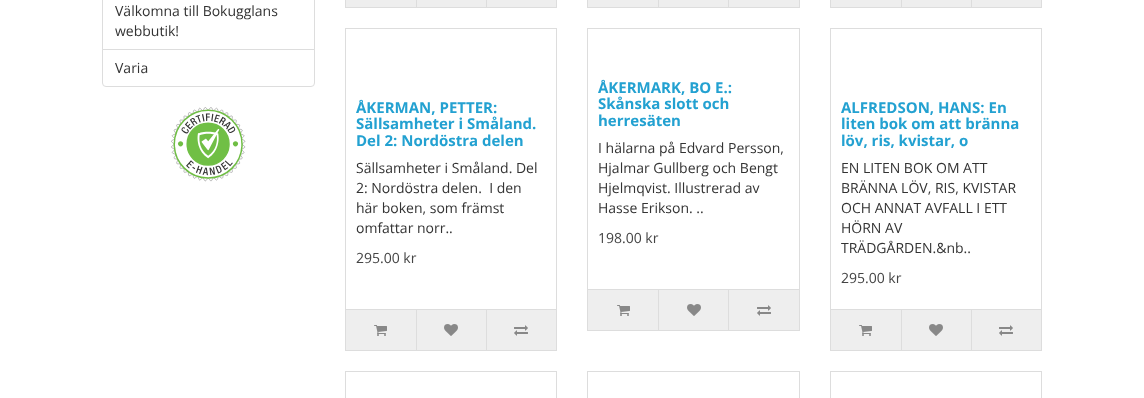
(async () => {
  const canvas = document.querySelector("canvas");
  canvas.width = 1144;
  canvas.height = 398;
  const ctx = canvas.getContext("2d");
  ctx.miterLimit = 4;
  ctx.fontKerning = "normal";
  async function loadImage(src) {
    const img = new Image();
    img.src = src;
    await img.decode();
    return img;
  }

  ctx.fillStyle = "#ffffff";
  ctx.fillRect(0, 0, 1144, 398);
  ctx.strokeStyle = "#dddddd";
  ctx.strokeRect(102.5, -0.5, 212, 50);
  ctx.beginPath();
  ctx.roundRect(102.5, 49.5, 212, 37, [0, 0, 3.5, 3.5]);
  ctx.fill();
  ctx.stroke();
  ctx.drawImage(await loadImage("img/1.png"), 171, 107, 75, 75);
  ctx.strokeRect(345.5, -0.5, 211, 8);
  for (const [x, y, w, h, color] of [
    [346, 0, 210, 7, "#eeeeee"],
    [416, 0, 1, 7, "#dddddd"],
    [486, 0, 1, 7, "#dddddd"],
  ]) {
    ctx.fillStyle = color;
    ctx.fillRect(x, y, w, h);
  }
  ctx.strokeRect(587.5, -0.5, 212, 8);
  for (const [x, y, w, h, color] of [
    [588, 0, 211, 7, "#eeeeee"],
    [658, 0, 1, 7, "#dddddd"],
    [728, 0, 1, 7, "#dddddd"],
  ]) {
    ctx.fillStyle = color;
    ctx.fillRect(x, y, w, h);
  }
  ctx.strokeRect(830.5, -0.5, 211, 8);
  for (const [x, y, w, h, color] of [
    [831, 0, 210, 7, "#eeeeee"],
    [901, 0, 1, 7, "#dddddd"],
    [971, 0, 1, 7, "#dddddd"],
  ]) {
    ctx.fillStyle = color;
    ctx.fillRect(x, y, w, h);
  }
  ctx.strokeRect(345.5, 28.5, 211, 322);
  ctx.fillStyle = "#eeeeee";
  ctx.fillRect(346, 310, 210, 40);
  ctx.fillStyle = "#dddddd";
  ctx.fillRect(346, 309, 210, 1);
  ctx.drawImage(await loadImage("img/2.png"), 374, 325, 13, 11);
  ctx.fillRect(416, 310, 1, 40);
  ctx.drawImage(await loadImage("img/3.png"), 444, 324, 14, 12);
  ctx.fillRect(486, 310, 1, 40);
  ctx.drawImage(await loadImage("img/4.png"), 514, 325, 14, 11);
  ctx.strokeRect(587.5, 28.5, 212, 302);
  ctx.fillStyle = "#eeeeee";
  ctx.fillRect(588, 290, 211, 40);
  ctx.fillStyle = "#dddddd";
  ctx.fillRect(588, 289, 211, 1);
  ctx.drawImage(await loadImage("img/2.png"), 617, 305, 13, 11);
  ctx.fillRect(658, 290, 1, 40);
  ctx.drawImage(await loadImage("img/3.png"), 687, 304, 14, 12);
  ctx.fillRect(728, 290, 1, 40);
  ctx.drawImage(await loadImage("img/4.png"), 757, 305, 14, 11);
  ctx.strokeRect(830.5, 28.5, 211, 322);
  ctx.fillStyle = "#eeeeee";
  ctx.fillRect(831, 310, 210, 40);
  ctx.fillStyle = "#dddddd";
  ctx.fillRect(831, 309, 210, 1);
  ctx.drawImage(await loadImage("img/2.png"), 859, 325, 13, 11);
  ctx.fillRect(901, 310, 1, 40);
  ctx.drawImage(await loadImage("img/3.png"), 929, 324, 14, 12);
  ctx.fillRect(971, 310, 1, 40);
  ctx.drawImage(await loadImage("img/4.png"), 999, 325, 14, 11);
  ctx.strokeRect(345.5, 371.5, 211, 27);
  ctx.strokeRect(587.5, 371.5, 212, 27);
  ctx.strokeRect(830.5, 371.5, 211, 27);
  ctx.font = "14px Open Sans";
  ctx.fillStyle = "#333333";
  for (const [text, x, y] of [
    ["Välkomna till Bokugglans", 115, 16],
    ["webbutik!", 115, 36],
    ["Varia", 115, 73],
  ]) {
    ctx.fillText(text, x, y);
  }
  ctx.font = "bold 15px Open Sans";
  ctx.fillStyle = "#23a1d1";
  for (const [text, x, y] of [
    ["ÅKERMAN, PETTER:", 356, 113],
    ["Sällsamheter i Småland.", 356, 129],
    ["Del 2: Nordöstra delen", 356, 146],
  ]) {
    ctx.fillText(text, x, y);
  }
  ctx.font = "14px Open Sans";
  ctx.fillStyle = "#333333";
  for (const [text, x, y] of [
    ["Sällsamheter i Småland. Del", 356, 173],
    ["2: Nordöstra delen.  I den", 356, 193],
    ["här boken, som främst", 356, 213],
    ["omfattar norr..", 356, 233],
  ]) {
    ctx.fillText(text, x, y);
  }
  ctx.fillStyle = "#444444";
  ctx.fillText("295.00 kr", 356, 263);
  ctx.font = "bold 15px Open Sans";
  ctx.fillStyle = "#23a1d1";
  for (const [text, x, y] of [
    ["ÅKERMARK, BO E.:", 598, 93],
    ["Skånska slott och", 598, 109],
    ["herresäten", 598, 126],
  ]) {
    ctx.fillText(text, x, y);
  }
  ctx.font = "14px Open Sans";
  ctx.fillStyle = "#333333";
  for (const [text, x, y] of [
    ["I hälarna på Edvard Persson,", 598, 153],
    ["Hjalmar Gullberg och Bengt", 598, 173],
    ["Hjelmqvist. Illustrerad av", 598, 193],
    ["Hasse Erikson. ..", 598, 213],
  ]) {
    ctx.fillText(text, x, y);
  }
  ctx.fillStyle = "#444444";
  ctx.fillText("198.00 kr", 598, 243);
  ctx.font = "bold 15px Open Sans";
  ctx.fillStyle = "#23a1d1";
  for (const [text, x, y] of [
    ["ALFREDSON, HANS: En", 841, 113],
    ["liten bok om att bränna", 841, 129],
    ["löv, ris, kvistar, o", 841, 146],
  ]) {
    ctx.fillText(text, x, y);
  }
  ctx.font = "14px Open Sans";
  ctx.fillStyle = "#333333";
  for (const [text, x, y] of [
    ["EN LITEN BOK OM ATT", 841, 173],
    ["BRÄNNA LÖV, RIS, KVISTAR", 841, 193],
    ["OCH ANNAT AVFALL I ETT", 841, 213],
    ["HÖRN AV", 841, 233],
    ["TRÄDGÅRDEN.&nb..", 841, 253],
  ]) {
    ctx.fillText(text, x, y);
  }
  ctx.fillStyle = "#444444";
  ctx.fillText("295.00 kr", 841, 283);
})();
